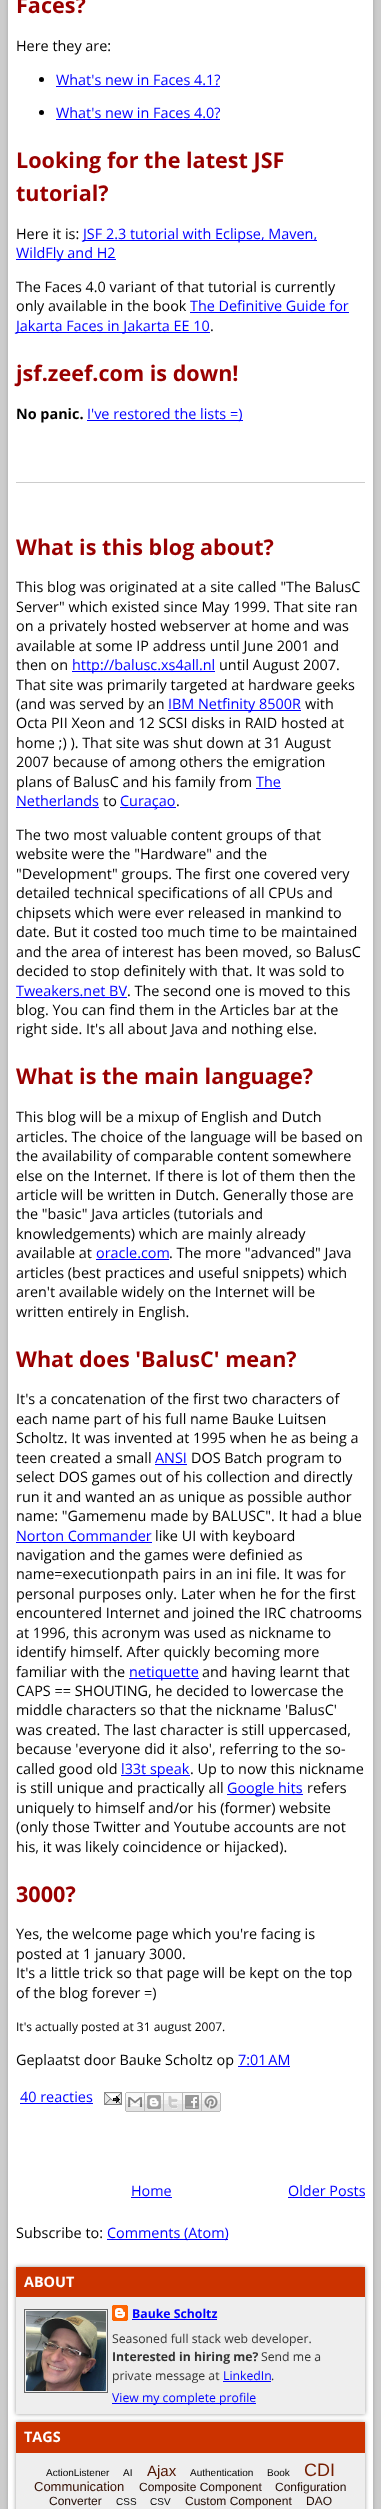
(async () => {
  const canvas = document.querySelector("canvas");
  canvas.width = 381;
  canvas.height = 2509;
  const ctx = canvas.getContext("2d");
  ctx.miterLimit = 4;
  ctx.fontKerning = "normal";
  async function loadImage(src) {
    const img = new Image();
    img.src = src;
    await img.decode();
    return img;
  }

  ctx.fillStyle = "#cccccc";
  ctx.fillRect(0, 0, 381, 2509);
  ctx.fillStyle = "rgba(0, 0, 0, 0.2)";
  ctx.filter = "blur(2px)";
  ctx.beginPath();
  ctx.rect(8, -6, 365, 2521);
  ctx.fill();
  ctx.filter = "none";
  ctx.fillStyle = "#ffffff";
  ctx.fillRect(8, 0, 365, 2509);
  ctx.fillStyle = "#000000";
  ctx.beginPath();
  ctx.arc(41.5, 79.5, 2.5, 0, Math.PI * 2);
  ctx.fill();
  ctx.fillStyle = "#0000ff";
  ctx.fillRect(56, 86, 164, 1);
  ctx.fillStyle = "#000000";
  ctx.beginPath();
  ctx.arc(41.5, 112.5, 2.5, 0, Math.PI * 2);
  ctx.fill();
  for (const [x, y, w, h, color] of [
    [56, 119, 164, 1, "#0000ff"],
    [83, 240, 234, 1, "#0000ff"],
    [16, 259, 100, 1, "#0000ff"],
    [190, 312, 159, 1, "#0000ff"],
    [16, 332, 194, 1, "#0000ff"],
    [87, 420, 156, 1, "#0000ff"],
    [16, 482, 349, 1, "#cccccc"],
    [72, 671, 143, 1, "#0000ff"],
    [168, 710, 133, 1, "#0000ff"],
    [256, 788, 25, 1, "#0000ff"],
    [16, 807, 83, 1, "#0000ff"],
    [120, 807, 56, 1, "#0000ff"],
    [16, 997, 111, 1, "#0000ff"],
    [96, 1259, 73, 1, "#0000ff"],
    [155, 1464, 32, 1, "#0000ff"],
    [16, 1542, 136, 1, "#0000ff"],
    [129, 1678, 70, 1, "#0000ff"],
    [121, 1775, 69, 1, "#0000ff"],
    [227, 1794, 76, 1, "#0000ff"],
    [238, 2066, 52, 1, "#0000ff"],
    [20, 2103, 73, 1, "#0000ff"],
  ]) {
    ctx.fillStyle = color;
    ctx.fillRect(x, y, w, h);
  }
  ctx.drawImage(await loadImage("img/1.png"), 104, 2092, 18, 13);
  ctx.drawImage(await loadImage("img/2.png"), 125, 2092, 20, 20);
  ctx.drawImage(await loadImage("img/3.png"), 145, 2092, 19, 20);
  ctx.drawImage(await loadImage("img/4.png"), 164, 2092, 19, 20);
  ctx.drawImage(await loadImage("img/5.png"), 183, 2092, 19, 20);
  ctx.drawImage(await loadImage("img/6.png"), 202, 2092, 19, 20);
  for (const [x, y, w, h, color] of [
    [131, 2197, 41, 1, "#0000ff"],
    [288, 2197, 77, 1, "#0000ff"],
    [107, 2239, 121, 1, "#0000ff"],
  ]) {
    ctx.fillStyle = color;
    ctx.fillRect(x, y, w, h);
  }
  ctx.fillStyle = "rgba(0, 0, 0, 0.4)";
  ctx.filter = "blur(2px)";
  ctx.beginPath();
  ctx.rect(16, 2267, 349, 147);
  ctx.fill();
  ctx.filter = "none";
  ctx.fillStyle = "#eeeeee";
  ctx.fillRect(16, 2297, 349, 117);
  ctx.fillStyle = "#cc3300";
  ctx.fillRect(16, 2267, 349, 30);
  ctx.strokeStyle = "#666666";
  ctx.strokeRect(24.5, 2309.5, 83, 83);
  ctx.drawImage(await loadImage("img/7.png"), 26, 2311, 80, 80);
  ctx.drawImage(await loadImage("img/8.png"), 112, 2305, 16, 16);
  for (const [x, y, w, h, color] of [
    [132, 2319, 85, 1, "#0000ff"],
    [223, 2381, 48, 1, "#0000ff"],
    [112, 2403, 144, 1, "#0000ff"],
  ]) {
    ctx.fillStyle = color;
    ctx.fillRect(x, y, w, h);
  }
  ctx.fillStyle = "rgba(0, 0, 0, 0.4)";
  ctx.filter = "blur(2px)";
  ctx.beginPath();
  ctx.rect(16, 2422, 349, 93);
  ctx.fill();
  ctx.filter = "none";
  ctx.fillStyle = "#eeeeee";
  ctx.fillRect(16, 2453, 349, 56);
  ctx.fillStyle = "#cc3300";
  ctx.fillRect(16, 2422, 349, 31);
  ctx.font = "bold 21.6px Open Sans";
  ctx.fillStyle = "#990000";
  ctx.fillText("Faces?", 16, 13);
  ctx.font = "14.4px Open Sans";
  ctx.fillStyle = "#000000";
  ctx.fillText("Here they are:", 16, 51);
  ctx.fillStyle = "#0000ff";
  ctx.fillText("What's new in Faces 4.1?", 56, 85);
  ctx.fillText("What's new in Faces 4.0?", 56, 118);
  ctx.font = "bold 21.6px Open Sans";
  ctx.fillStyle = "#990000";
  ctx.fillText("Looking for the latest JSF", 16, 168);
  ctx.fillText("tutorial?", 16, 201);
  ctx.font = "14.4px Open Sans";
  ctx.fillStyle = "#000000";
  ctx.fillText("Here it is:", 16, 239);
  ctx.fillStyle = "#0000ff";
  ctx.fillText("JSF 2.3 tutorial with Eclipse, Maven,", 83, 239);
  ctx.fillText("WildFly and H2", 16, 258);
  ctx.fillStyle = "#000000";
  ctx.fillText("The Faces 4.0 variant of that tutorial is currently", 16, 292);
  ctx.fillText("only available in the book", 16, 311);
  ctx.fillStyle = "#0000ff";
  ctx.fillText("The Definitive Guide for", 190, 311);
  ctx.fillText("Jakarta Faces in Jakarta EE 10", 16, 331);
  ctx.fillStyle = "#000000";
  ctx.fillText(".", 210, 331);
  ctx.font = "bold 21.6px Open Sans";
  ctx.fillStyle = "#990000";
  ctx.fillText("jsf.zeef.com is down!", 16, 381);
  ctx.font = "bold 14.4px Open Sans";
  ctx.fillStyle = "#000000";
  ctx.fillText("No panic.", 16, 419);
  ctx.font = "14.4px Open Sans";
  ctx.fillStyle = "#0000ff";
  ctx.fillText("I've restored the lists =)", 87, 419);
  ctx.font = "bold 21.6px Open Sans";
  ctx.fillStyle = "#990000";
  ctx.fillText("What is this blog about?", 16, 555);
  ctx.font = "14.4px Open Sans";
  ctx.fillStyle = "#000000";
  for (const [text, x, y] of [
    ["This blog was originated at a site called \"The BalusC", 16, 592],
    ["Server\" which existed since May 1999. That site ran", 16, 612],
    ["on a privately hosted webserver at home and was", 16, 631],
    ["available at some IP address until June 2001 and", 16, 651],
    ["then on", 16, 670],
  ]) {
    ctx.fillText(text, x, y);
  }
  ctx.fillStyle = "#0000ff";
  ctx.fillText("http://balusc.xs4all.nl", 72, 670);
  ctx.fillStyle = "#000000";
  for (const [text, x, y] of [
    ["until August 2007.", 219, 670],
    ["That site was primarily targeted at hardware geeks", 16, 690],
    ["(and was served by an", 16, 709],
  ]) {
    ctx.fillText(text, x, y);
  }
  ctx.fillStyle = "#0000ff";
  ctx.fillText("IBM Netfinity 8500R", 168, 709);
  ctx.fillStyle = "#000000";
  for (const [text, x, y] of [
    ["with", 305, 709],
    ["Octa PII Xeon and 12 SCSI disks in RAID hosted at", 16, 728],
    ["home ;) ). That site was shut down at 31 August", 16, 748],
    ["2007 because of among others the emigration", 16, 767],
    ["plans of BalusC and his family from", 16, 787],
  ]) {
    ctx.fillText(text, x, y);
  }
  ctx.fillStyle = "#0000ff";
  ctx.fillText("The", 256, 787);
  ctx.fillText("Netherlands", 16, 806);
  ctx.fillStyle = "#000000";
  ctx.fillText("to", 103, 806);
  ctx.fillStyle = "#0000ff";
  ctx.fillText("Curaçao", 120, 806);
  ctx.fillStyle = "#000000";
  for (const [text, x, y] of [
    [".", 176, 806],
    ["The two most valuable content groups of that", 16, 840],
    ["website were the \"Hardware\" and the", 16, 859],
    ["\"Development\" groups. The first one covered very", 16, 879],
    ["detailed technical specifications of all CPUs and", 16, 898],
    ["chipsets which were ever released in mankind to", 16, 918],
    ["date. But it costed too much time to be maintained", 16, 937],
    ["and the area of interest has been moved, so BalusC", 16, 957],
    ["decided to stop definitely with that. It was sold to", 16, 976],
  ]) {
    ctx.fillText(text, x, y);
  }
  ctx.fillStyle = "#0000ff";
  ctx.fillText("Tweakers.net BV", 16, 996);
  ctx.fillStyle = "#000000";
  for (const [text, x, y] of [
    [". The second one is moved to this", 127, 996],
    ["blog. You can find them in the Articles bar at the", 16, 1015],
    ["right side. It's all about Java and nothing else.", 16, 1034],
  ]) {
    ctx.fillText(text, x, y);
  }
  ctx.font = "bold 21.6px Open Sans";
  ctx.fillStyle = "#990000";
  ctx.fillText("What is the main language?", 16, 1084);
  ctx.font = "14.4px Open Sans";
  ctx.fillStyle = "#000000";
  for (const [text, x, y] of [
    ["This blog will be a mixup of English and Dutch", 16, 1122],
    ["articles. The choice of the language will be based on", 16, 1142],
    ["the availability of comparable content somewhere", 16, 1161],
    ["else on the Internet. If there is lot of them then the", 16, 1181],
    ["article will be written in Dutch. Generally those are", 16, 1200],
    ["the \"basic\" Java articles (tutorials and", 16, 1219],
    ["knowledgements) which are mainly already", 16, 1239],
    ["available at", 16, 1258],
  ]) {
    ctx.fillText(text, x, y);
  }
  ctx.fillStyle = "#0000ff";
  ctx.fillText("oracle.com", 96, 1258);
  ctx.fillStyle = "#000000";
  for (const [text, x, y] of [
    [". The more \"advanced\" Java", 169, 1258],
    ["articles (best practices and useful snippets) which", 16, 1278],
    ["aren't available widely on the Internet will be", 16, 1297],
    ["written entirely in English.", 16, 1317],
  ]) {
    ctx.fillText(text, x, y);
  }
  ctx.font = "bold 21.6px Open Sans";
  ctx.fillStyle = "#990000";
  ctx.fillText("What does 'BalusC' mean?", 16, 1367);
  ctx.font = "14.4px Open Sans";
  ctx.fillStyle = "#000000";
  for (const [text, x, y] of [
    ["It's a concatenation of the first two characters of", 16, 1404],
    ["each name part of his full name Bauke Luitsen", 16, 1424],
    ["Scholtz. It was invented at 1995 when he as being a", 16, 1443],
    ["teen created a small", 16, 1463],
  ]) {
    ctx.fillText(text, x, y);
  }
  ctx.fillStyle = "#0000ff";
  ctx.fillText("ANSI", 155, 1463);
  ctx.fillStyle = "#000000";
  for (const [text, x, y] of [
    ["DOS Batch program to", 191, 1463],
    ["select DOS games out of his collection and directly", 16, 1482],
    ["run it and wanted an as unique as possible author", 16, 1502],
    ["name: \"Gamemenu made by BALUSC\". It had a blue", 16, 1521],
  ]) {
    ctx.fillText(text, x, y);
  }
  ctx.fillStyle = "#0000ff";
  ctx.fillText("Norton Commander", 16, 1541);
  ctx.fillStyle = "#000000";
  for (const [text, x, y] of [
    ["like UI with keyboard", 155, 1541],
    ["navigation and the games were definied as", 16, 1560],
    ["name=executionpath pairs in an ini file. It was for", 16, 1579],
    ["personal purposes only. Later when he for the first", 16, 1599],
    ["encountered Internet and joined the IRC chatrooms", 16, 1618],
    ["at 1996, this acronym was used as nickname to", 16, 1638],
    ["identify himself. After quickly becoming more", 16, 1657],
    ["familiar with the", 16, 1677],
  ]) {
    ctx.fillText(text, x, y);
  }
  ctx.fillStyle = "#0000ff";
  ctx.fillText("netiquette", 129, 1677);
  ctx.fillStyle = "#000000";
  for (const [text, x, y] of [
    ["and having learnt that", 202, 1677],
    ["CAPS == SHOUTING, he decided to lowercase the", 16, 1696],
    ["middle characters so that the nickname 'BalusC'", 16, 1715],
    ["was created. The last character is still uppercased,", 16, 1735],
    ["because 'everyone did it also', referring to the so-", 16, 1754],
    ["called good old", 16, 1774],
  ]) {
    ctx.fillText(text, x, y);
  }
  ctx.fillStyle = "#0000ff";
  ctx.fillText("l33t speak", 121, 1774);
  ctx.fillStyle = "#000000";
  ctx.fillText(". Up to now this nickname", 190, 1774);
  ctx.fillText("is still unique and practically all", 16, 1793);
  ctx.fillStyle = "#0000ff";
  ctx.fillText("Google hits", 227, 1793);
  ctx.fillStyle = "#000000";
  for (const [text, x, y] of [
    ["refers", 307, 1793],
    ["uniquely to himself and/or his (former) website", 16, 1813],
    ["(only those Twitter and Youtube accounts are not", 16, 1832],
    ["his, it was likely coincidence or hijacked).", 16, 1852],
  ]) {
    ctx.fillText(text, x, y);
  }
  ctx.font = "bold 21.6px Open Sans";
  ctx.fillStyle = "#990000";
  ctx.fillText("3000?", 16, 1902);
  ctx.font = "14.4px Open Sans";
  ctx.fillStyle = "#000000";
  for (const [text, x, y] of [
    ["Yes, the welcome page which you're facing is", 16, 1939],
    ["posted at 1 january 3000.", 16, 1959],
    ["It's a little trick so that page will be kept on the top", 16, 1978],
    ["of the blog forever =)", 16, 1998],
  ]) {
    ctx.fillText(text, x, y);
  }
  ctx.font = "12px Open Sans";
  ctx.fillText("It's actually posted at 31 august 2007.", 16, 2031);
  ctx.font = "14.4px Open Sans";
  ctx.fillText("Geplaatst door Bauke Scholtz op", 16, 2065);
  ctx.fillStyle = "#0000ff";
  for (const [text, x, y] of [
    ["7:01 AM", 238, 2065],
    ["40 reacties", 20, 2102],
    ["Home", 131, 2196],
    ["Older Posts", 288, 2196],
  ]) {
    ctx.fillText(text, x, y);
  }
  ctx.fillStyle = "#000000";
  ctx.fillText("Subscribe to:", 16, 2238);
  ctx.fillStyle = "#0000ff";
  ctx.fillText("Comments (Atom)", 107, 2238);
  ctx.font = "bold 14.4px Open Sans";
  ctx.fillStyle = "#ffffff";
  ctx.fillText("ABOUT", 24, 2287);
  ctx.font = "bold 12.25px Open Sans";
  ctx.fillStyle = "#0000ff";
  ctx.fillText("Bauke Scholtz", 132, 2318);
  ctx.font = "12.25px Open Sans";
  ctx.fillStyle = "#333333";
  ctx.fillText("Seasoned full stack web developer.", 112, 2343);
  ctx.font = "bold 12.25px Open Sans";
  ctx.fillText("Interested in hiring me?", 112, 2361);
  ctx.font = "12.25px Open Sans";
  ctx.fillText("Send me a", 261, 2361);
  ctx.fillText("private message at", 112, 2380);
  ctx.fillStyle = "#0000ff";
  ctx.fillText("LinkedIn", 223, 2380);
  ctx.fillStyle = "#333333";
  ctx.fillText(".", 271, 2380);
  ctx.fillStyle = "#0000ff";
  ctx.fillText("View my complete profile", 112, 2402);
  ctx.font = "bold 14.4px Open Sans";
  ctx.fillStyle = "#ffffff";
  ctx.fillText("TAGS", 24, 2442);
  ctx.font = "10px Liberation Sans";
  ctx.fillStyle = "#000000";
  ctx.fillText("ActionListener", 46, 2476);
  ctx.fillText("AI", 123, 2476);
  ctx.font = "15px Liberation Sans";
  ctx.fillStyle = "#4e1300";
  ctx.fillText("Ajax", 147, 2476);
  ctx.font = "10px Liberation Sans";
  ctx.fillStyle = "#000000";
  ctx.fillText("Authentication", 190, 2476);
  ctx.fillText("Book", 267, 2476);
  ctx.font = "18px Liberation Sans";
  ctx.fillStyle = "#741d00";
  ctx.fillText("CDI", 304, 2476);
  ctx.font = "13px Liberation Sans";
  ctx.fillStyle = "#350d00";
  ctx.fillText("Communication", 34, 2491);
  ctx.font = "12px Liberation Sans";
  ctx.fillStyle = "#210800";
  for (const [text, x, y] of [
    ["Composite Component", 139, 2491],
    ["Configuration", 275, 2491],
    ["Converter", 49, 2505],
  ]) {
    ctx.fillText(text, x, y);
  }
  ctx.font = "10px Liberation Sans";
  ctx.fillStyle = "#000000";
  ctx.fillText("CSS", 116, 2505);
  ctx.fillText("CSV", 150, 2505);
  ctx.font = "12px Liberation Sans";
  ctx.fillStyle = "#210800";
  ctx.fillText("Custom Component", 185, 2505);
  ctx.fillText("DAO", 306, 2505);
})();
